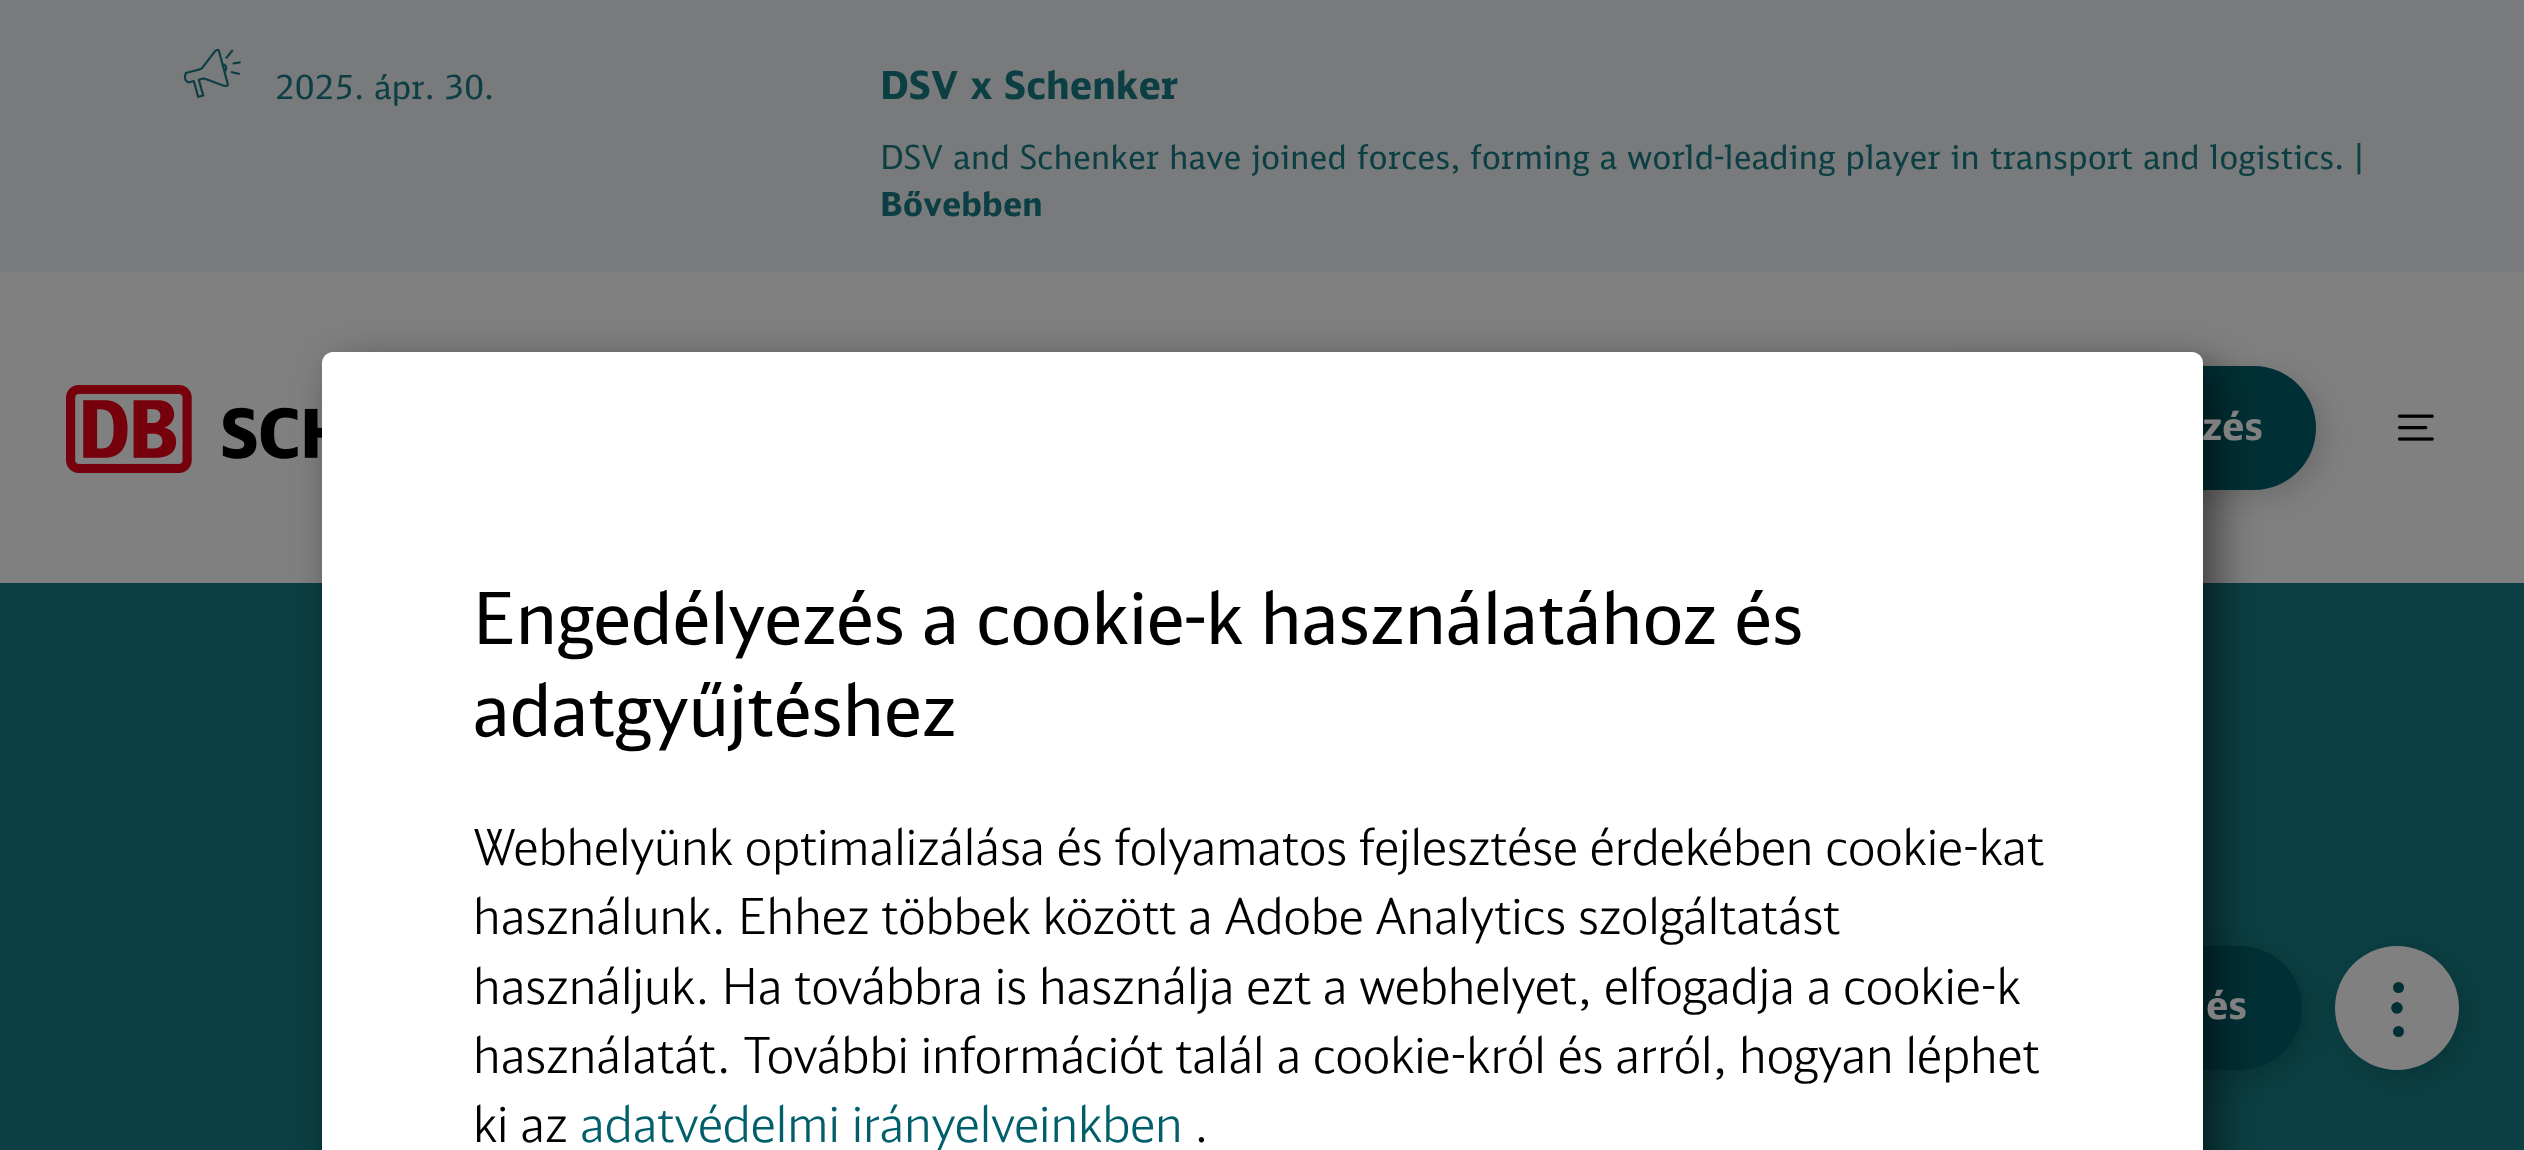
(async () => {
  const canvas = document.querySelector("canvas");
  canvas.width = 2524;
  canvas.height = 1150;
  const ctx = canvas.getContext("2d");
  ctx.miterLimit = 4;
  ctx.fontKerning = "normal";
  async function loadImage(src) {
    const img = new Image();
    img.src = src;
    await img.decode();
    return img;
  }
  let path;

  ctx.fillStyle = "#808080";
  ctx.fillRect(0, 0, 2524, 1150);
  ctx.fillStyle = "#787a7b";
  ctx.fillRect(0, 0, 2524, 272);
  ctx.drawImage(await loadImage("img/1.png"), 183, 48, 58, 50);
  ctx.drawImage(await loadImage("img/2.png"), 66, 385, 256, 88);
  ctx.fillStyle = "rgba(0, 0, 0, 0.15)";
  ctx.filter = "blur(14px)";
  ctx.beginPath();
  ctx.roundRect(1892, 374, 432, 124, 62);
  ctx.fill();
  ctx.filter = "none";
  ctx.fillStyle = "#003035";
  ctx.beginPath();
  ctx.roundRect(1884, 366, 432, 124, 62);
  ctx.fill();
  ctx.drawImage(await loadImage("img/3.png"), 2397, 414, 37, 27);
  ctx.fillStyle = "#0b3f43";
  ctx.fillRect(0, 583, 2524, 567);
  ctx.fillStyle = "rgba(0, 0, 0, 0.15)";
  ctx.filter = "blur(14px)";
  ctx.beginPath();
  ctx.roundRect(1884, 954, 426, 124, 62);
  ctx.fill();
  ctx.filter = "none";
  ctx.fillStyle = "#003035";
  ctx.beginPath();
  ctx.roundRect(1876, 946, 426, 124, 62);
  ctx.fill();
  ctx.fillStyle = "rgba(0, 0, 0, 0.5)";
  ctx.filter = "blur(20.5px)";
  ctx.beginPath();
  ctx.roundRect(336, 366, 1881, 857, 11);
  ctx.fill();
  ctx.filter = "none";
  ctx.fillStyle = "#ffffff";
  path = new Path2D("M333 352H2192C2198 352 2203 357 2203 363V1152H322V363C322 357 327 352 333 352Z");
  ctx.fill(path);
  ctx.fillStyle = "rgba(0, 0, 0, 0.15)";
  ctx.filter = "blur(14px)";
  ctx.beginPath();
  ctx.roundRect(2343, 954, 124, 124, 62);
  ctx.fill();
  ctx.filter = "none";
  ctx.fillStyle = "#808080";
  ctx.beginPath();
  ctx.arc(2397, 1008, 62, 0, Math.PI * 2);
  ctx.fill();
  ctx.fillStyle = "#003035";
  ctx.beginPath();
  ctx.arc(2398.5, 987.5, 5.5, 0, Math.PI * 2);
  ctx.fill();
  path = new Path2D("M2401 1004C2406 1009 2398 1017 2393 1012C2388 1006.5 2395.5 999 2401 1004Z");
  ctx.fill(path);
  path = new Path2D("M2393 1004C2398 999 2406 1006.5 2401 1012C2395.5 1017 2388 1009 2393 1004Z");
  ctx.fill(path);
  ctx.beginPath();
  ctx.arc(2398.5, 1031.5, 5.5, 0, Math.PI * 2);
  ctx.fill();
  ctx.font = "33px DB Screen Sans";
  ctx.fillStyle = "#0b3f43";
  ctx.fillText("2025. ápr. 30.", 275, 99);
  ctx.font = "bold 38.5px DB Screen Sans";
  ctx.fillText("DSV x Schenker", 880, 99);
  ctx.font = "33px DB Screen Sans";
  ctx.fillText("DSV and Schenker have joined forces, forming a world-leading player in transport and logistics. |", 880, 169);
  ctx.font = "bold 33px DB Screen Sans";
  ctx.fillText("Bővebben", 880, 216);
  ctx.font = "bold 38.5px DB Screen Sans";
  ctx.fillStyle = "#808080";
  ctx.fillText("zés", 2202, 440);
  ctx.font = "71.5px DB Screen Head";
  ctx.fillStyle = "#000000";
  ctx.fillText("Engedélyezés a cookie-k használatához és", 473, 644);
  ctx.fillText("adatgyűjtéshez", 473, 736);
  ctx.font = "300 49.5px DB Screen Head";
  for (const [text, x, y] of [
    ["Webhelyünk optimalizálása és folyamatos fejlesztése érdekében cookie-kat", 473, 865],
    ["használunk. Ehhez többek között a Adobe Analytics szolgáltatást", 473, 934],
    ["használjuk. Ha továbbra is használja ezt a webhelyet, elfogadja a cookie-k", 473, 1004],
    ["használatát. További információt talál a cookie-król és arról, hogyan léphet", 473, 1073],
    ["ki az", 473, 1142],
  ]) {
    ctx.fillText(text, x, y);
  }
  ctx.fillStyle = "#005f6a";
  ctx.fillText("adatvédelmi irányelveinkben", 580, 1142);
  ctx.fillStyle = "#000000";
  ctx.fillText(".", 1194, 1142);
  ctx.font = "bold 38.5px DB Screen Sans";
  ctx.fillStyle = "#808080";
  ctx.fillText("és", 2206, 1019);
})();
